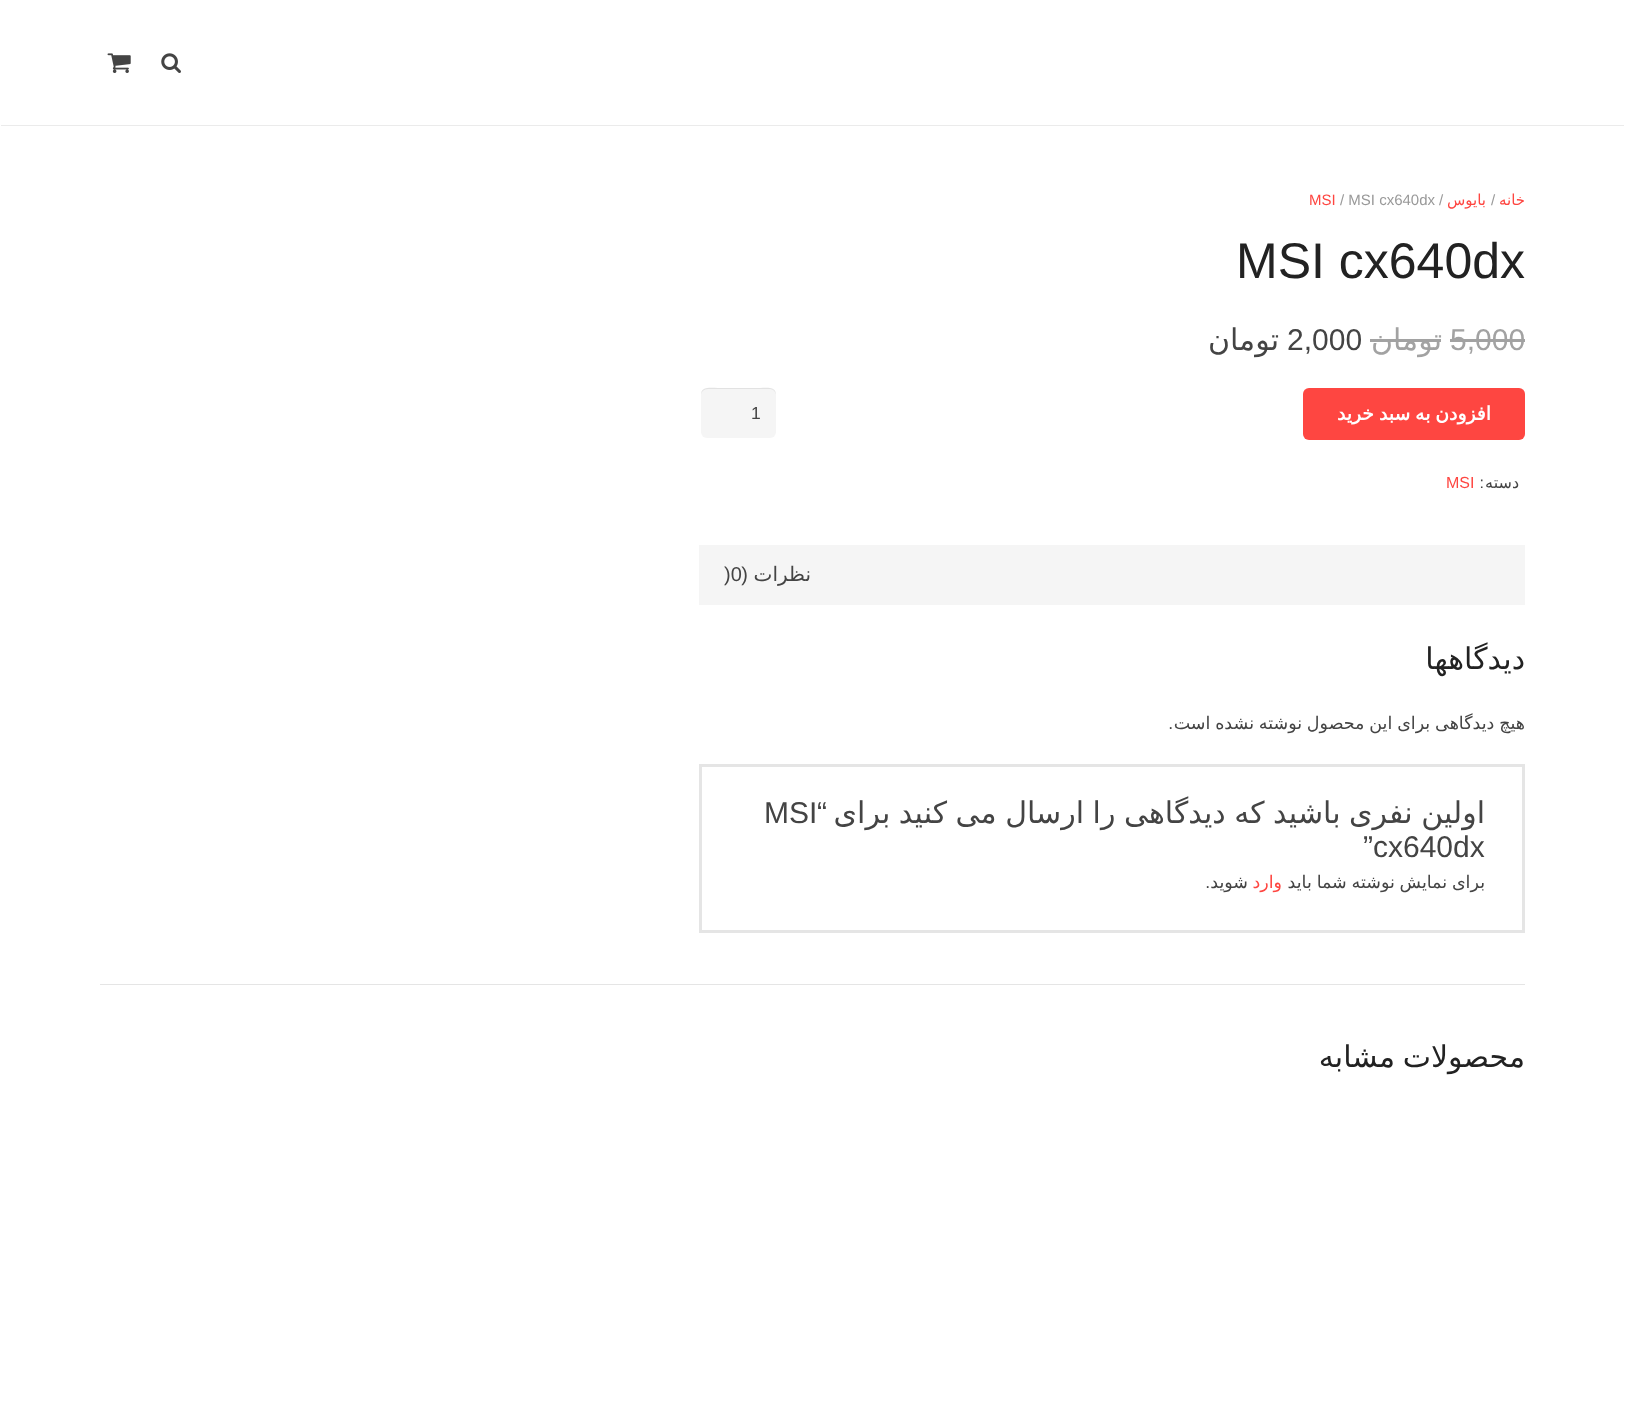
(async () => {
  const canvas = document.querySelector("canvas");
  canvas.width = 1625;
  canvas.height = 1420;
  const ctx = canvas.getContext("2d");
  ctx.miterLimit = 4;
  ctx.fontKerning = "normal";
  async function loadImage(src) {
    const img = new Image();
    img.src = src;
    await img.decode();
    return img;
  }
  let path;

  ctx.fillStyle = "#ffffff";
  ctx.fillRect(0, 0, 1625, 1420);
  ctx.fillStyle = "#ebebeb";
  ctx.fillRect(1, 125, 1623, 1);
  ctx.drawImage(await loadImage("img/1.png"), 161, 53, 20, 20);
  ctx.drawImage(await loadImage("img/2.png"), 107, 53, 24, 20);
  ctx.fillStyle = "#a2a2a2";
  ctx.fillRect(1450, 339, 75, 3);
  ctx.fillRect(1370, 339, 71, 3);
  ctx.fillStyle = "#fe4641";
  ctx.beginPath();
  ctx.roundRect(1303, 388, 222, 52, 6);
  ctx.fill();
  ctx.fillStyle = "#f5f5f5";
  ctx.beginPath();
  ctx.roundRect(701, 388, 75, 50, 6);
  ctx.fill();
  ctx.fillStyle = "#e2e2e2";
  path = new Path2D("M708 389H770C773 389 776 392 776 395C776 386 766 388 760 388H718C711 388 701 386 701 395C701 392 704 389 708 389Z");
  ctx.fill(path);
  ctx.fillStyle = "#f5f5f5";
  ctx.fillRect(699, 545, 826, 60);
  ctx.strokeStyle = "#e5e5e5";
  ctx.lineWidth = 3;
  ctx.strokeRect(700.5, 765.5, 823, 166);
  ctx.fillStyle = "#e5e5e5";
  ctx.fillRect(100, 984, 1425, 1);
  ctx.direction = "rtl";
  ctx.font = "15px DejaVu Sans";
  ctx.fillStyle = "#fe4641";
  ctx.fillText("خانه", 1525, 205);
  ctx.direction = "ltr";
  ctx.font = "15px Liberation Sans";
  ctx.fillStyle = "#999999";
  ctx.fillText("/", 1491, 205);
  ctx.direction = "rtl";
  ctx.font = "15px DejaVu Sans";
  ctx.fillStyle = "#fe4641";
  ctx.fillText("بایوس", 1486, 205);
  ctx.direction = "ltr";
  ctx.font = "15px Liberation Sans";
  ctx.fillStyle = "#999999";
  ctx.fillText("/", 1439, 205);
  ctx.fillText("/ MSI cx640dx", 1340, 205);
  ctx.fillStyle = "#fe4641";
  ctx.fillText("MSI", 1309, 205);
  ctx.font = "50px Liberation Sans";
  ctx.fillStyle = "#222222";
  ctx.fillText("MSI cx640dx", 1236, 278);
  ctx.font = "30px Liberation Sans";
  ctx.fillStyle = "#a2a2a2";
  ctx.fillText("5,000", 1450, 350);
  ctx.direction = "rtl";
  ctx.font = "30px DejaVu Sans";
  ctx.fillText("تومان", 1442, 350);
  ctx.direction = "ltr";
  ctx.font = "30px Liberation Sans";
  ctx.fillStyle = "#444444";
  ctx.fillText("2,000", 1287, 350);
  ctx.direction = "rtl";
  ctx.font = "30px DejaVu Sans";
  ctx.fillText("تومان", 1279, 350);
  ctx.wordSpacing = "-1px";
  ctx.font = "bold 18.75px DejaVu Sans";
  ctx.fillStyle = "#ffffff";
  ctx.fillText("افزودن به سبد خرید", 1491, 420);
  ctx.wordSpacing = "0px";
  ctx.direction = "ltr";
  ctx.font = "17.5px Liberation Sans";
  ctx.fillStyle = "#444444";
  ctx.fillText("1", 751, 419);
  ctx.direction = "rtl";
  ctx.font = "16px DejaVu Sans";
  ctx.fillText("دسته", 1519, 488);
  ctx.font = "16px Liberation Sans";
  ctx.fillText(":", 1484, 488);
  ctx.direction = "ltr";
  ctx.fillStyle = "#fe4641";
  ctx.fillText("MSI", 1446, 488);
  ctx.direction = "rtl";
  ctx.font = "20px DejaVu Sans";
  ctx.fillStyle = "#444444";
  ctx.fillText("نظرات", 811, 581);
  ctx.font = "20px Liberation Sans";
  ctx.fillText("(", 748, 581);
  ctx.direction = "ltr";
  ctx.fillText(")0", 724, 581);
  ctx.direction = "rtl";
  ctx.font = "30px DejaVu Sans";
  ctx.fillStyle = "#222222";
  ctx.fillText("دیدگاهها", 1525, 669);
  ctx.wordSpacing = "-0.75px";
  ctx.font = "17.5px DejaVu Sans";
  ctx.fillStyle = "#444444";
  ctx.fillText("هیچ دیدگاهی برای این محصول نوشته نشده است", 1525, 729);
  ctx.wordSpacing = "0px";
  ctx.font = "17.5px Liberation Sans";
  ctx.fillText(".", 1173, 729);
  ctx.wordSpacing = "-1px";
  ctx.font = "30px DejaVu Sans";
  ctx.fillText("اولین نفری باشید که دیدگاهی را ارسال می کنید برای", 1485, 823);
  ctx.wordSpacing = "0px";
  ctx.font = "30px Liberation Sans";
  ctx.fillText("“", 827, 823);
  ctx.direction = "ltr";
  ctx.fillText("MSI", 764, 823);
  ctx.fillText("”cx640dx", 1363, 857);
  ctx.wordSpacing = "-0.75px";
  ctx.direction = "rtl";
  ctx.font = "17.5px DejaVu Sans";
  ctx.fillText("برای نمایش نوشته شما باید", 1485, 888);
  ctx.wordSpacing = "0px";
  ctx.fillStyle = "#fe4641";
  ctx.fillText("وارد", 1282, 888);
  ctx.fillStyle = "#444444";
  ctx.fillText("شوید", 1248, 888);
  ctx.font = "17.5px Liberation Sans";
  ctx.fillText(".", 1210, 888);
  ctx.wordSpacing = "-2px";
  ctx.font = "30px DejaVu Sans";
  ctx.fillStyle = "#222222";
  ctx.fillText("محصولات مشابه", 1525, 1067);
})();
